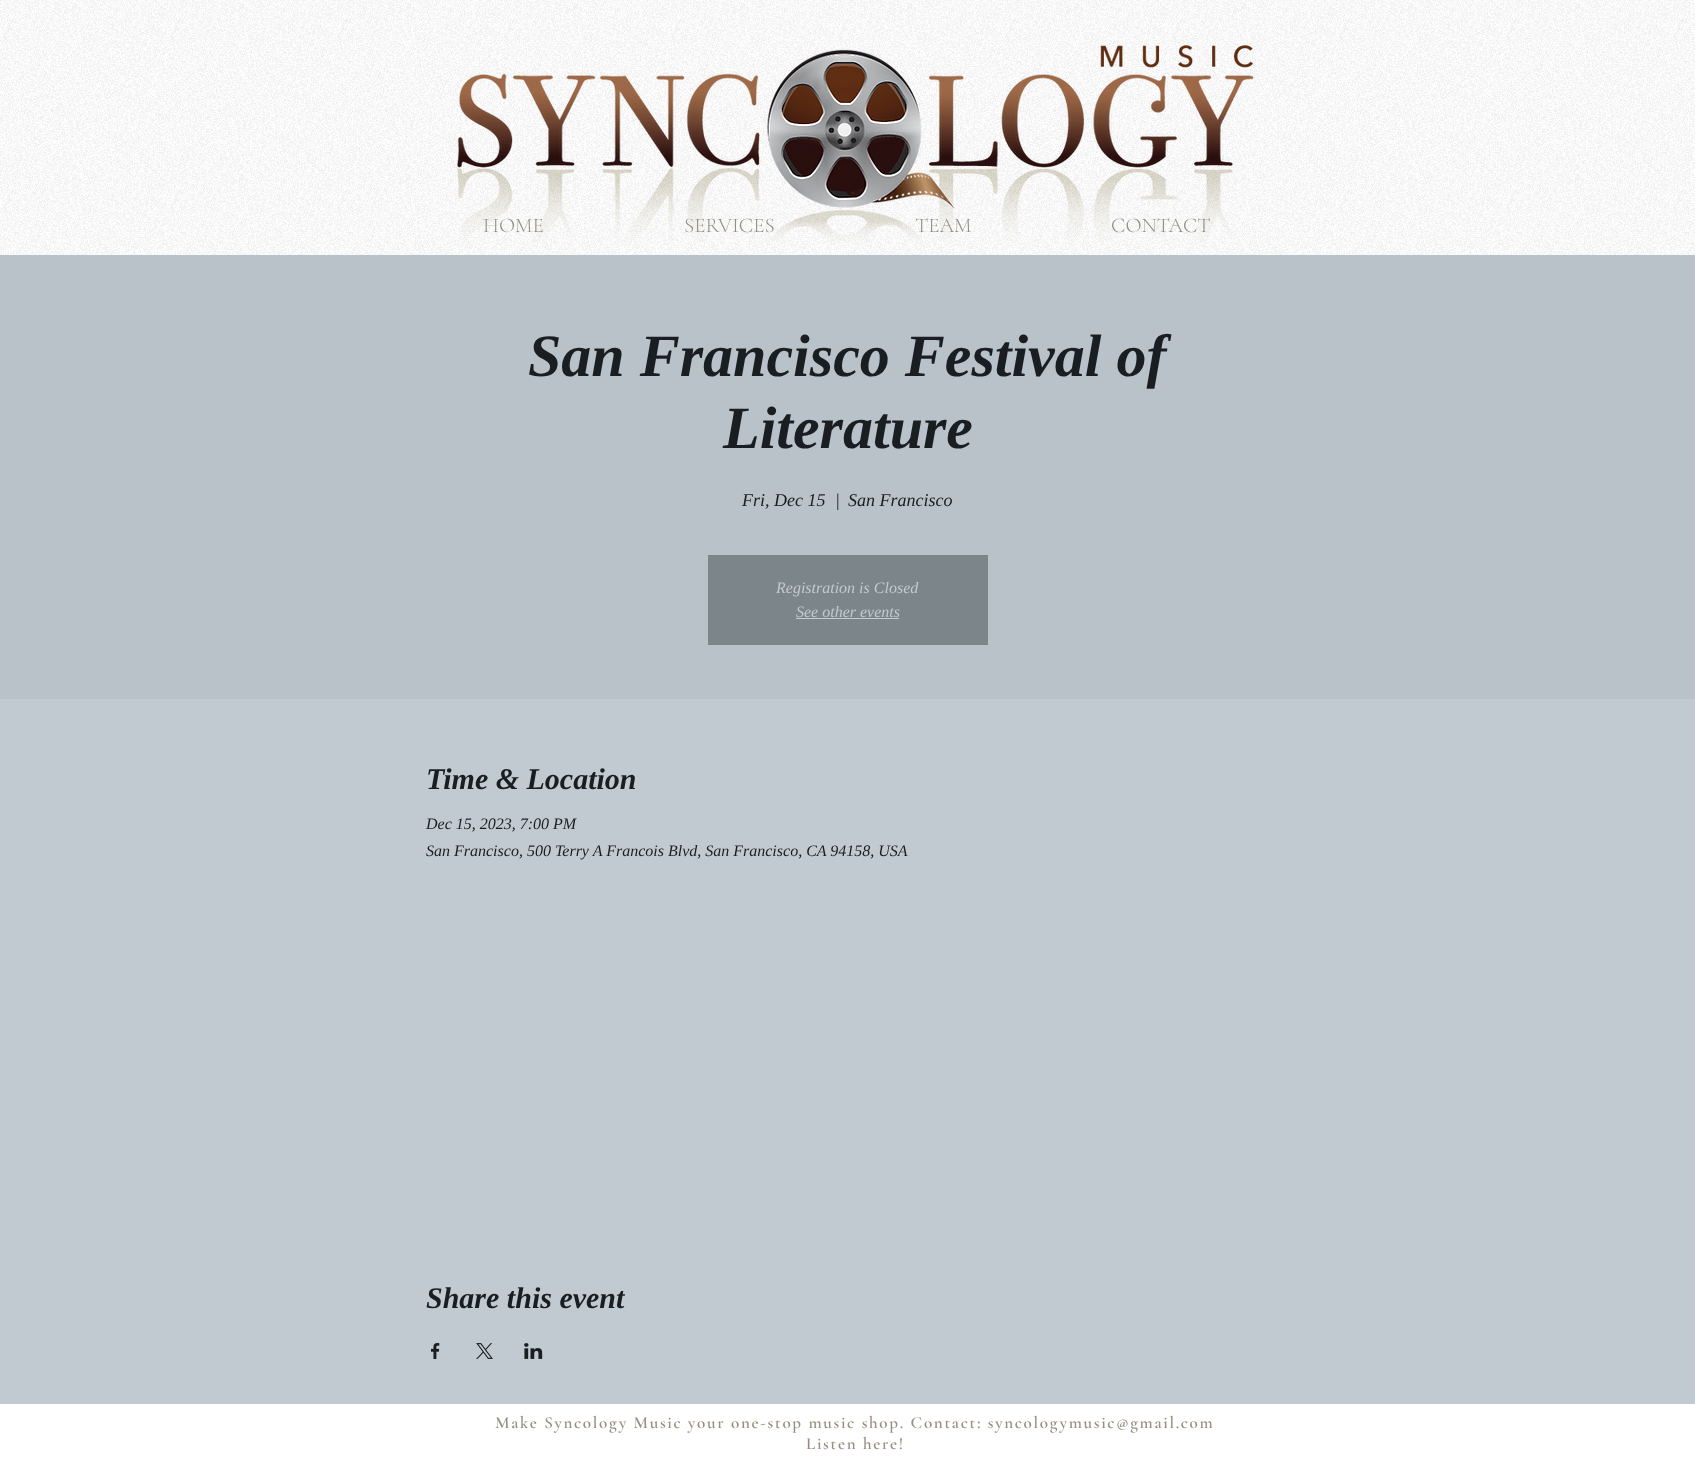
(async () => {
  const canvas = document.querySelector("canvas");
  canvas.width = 1695;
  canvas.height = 1474;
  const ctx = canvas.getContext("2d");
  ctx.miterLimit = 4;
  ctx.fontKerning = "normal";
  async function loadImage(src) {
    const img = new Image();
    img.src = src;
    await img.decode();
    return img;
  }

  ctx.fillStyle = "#c2cad1";
  ctx.fillRect(0, 0, 1695, 1474);
  ctx.fillStyle = "#ffffff";
  ctx.fillRect(0, 0, 1695, 255);
  ctx.drawImage(await loadImage("img/1.png"), 0, 0, 1695, 255);
  ctx.drawImage(await loadImage("img/2.png"), 457, 45, 797, 198);
  for (const [x, y, w, h, color] of [
    [0, 255, 1695, 444, "#bac2c9"],
    [708, 555, 280, 90, "#7c858a"],
    [796, 618, 103, 1, "#c2cad1"],
  ]) {
    ctx.fillStyle = color;
    ctx.fillRect(x, y, w, h);
  }
  ctx.drawImage(await loadImage("img/3.png"), 431, 1343, 9, 16);
  ctx.drawImage(await loadImage("img/4.png"), 476, 1343, 17, 16);
  ctx.drawImage(await loadImage("img/5.png"), 524, 1343, 19, 16);
  ctx.fillStyle = "#ffffff";
  ctx.fillRect(0, 1404, 1695, 70);
  ctx.font = "300 21px Cormorant Garamond";
  ctx.fillStyle = "#918f87";
  for (const [text, x, y] of [
    ["HOME", 483, 232],
    ["SERVICES", 684, 232],
    ["TEAM", 915, 232],
    ["CONTACT", 1111, 232],
  ]) {
    ctx.fillText(text, x, y);
  }
  ctx.font = "italic bold 60px Liberation Serif";
  ctx.fillStyle = "#191e23";
  ctx.fillText("San Francisco Festival of", 528, 376);
  ctx.fillText("Literature", 723, 448);
  ctx.font = "italic 18px Liberation Serif";
  for (const [text, x, y] of [
    ["Fri, Dec 15", 742, 506],
    ["|", 835, 506],
    ["San Francisco", 848, 506],
  ]) {
    ctx.fillText(text, x, y);
  }
  ctx.font = "italic 16px Liberation Serif";
  ctx.fillStyle = "#c2cad1";
  ctx.fillText("Registration is Closed", 776, 593);
  ctx.fillText("See other events", 796, 617);
  ctx.font = "italic bold 30px Liberation Serif";
  ctx.fillStyle = "#191e23";
  ctx.fillText("Time & Location", 426, 789);
  ctx.font = "italic 16px Liberation Serif";
  ctx.fillText("Dec 15, 2023, 7:00 PM", 426, 829);
  ctx.fillText("San Francisco, 500 Terry A Francois Blvd, San Francisco, CA 94158, USA", 426, 856);
  ctx.font = "italic bold 30px Liberation Serif";
  ctx.fillText("Share this event", 426, 1308);
  ctx.letterSpacing = "1.7px";
  ctx.font = "600 17px Cormorant Garamond";
  ctx.fillStyle = "#968e81";
  ctx.fillText("Make Syncology Music your one-stop music shop. Contact: syncologymusic@gmail.com", 495, 1428);
  ctx.fillText("Listen here!", 806, 1449);
})();
